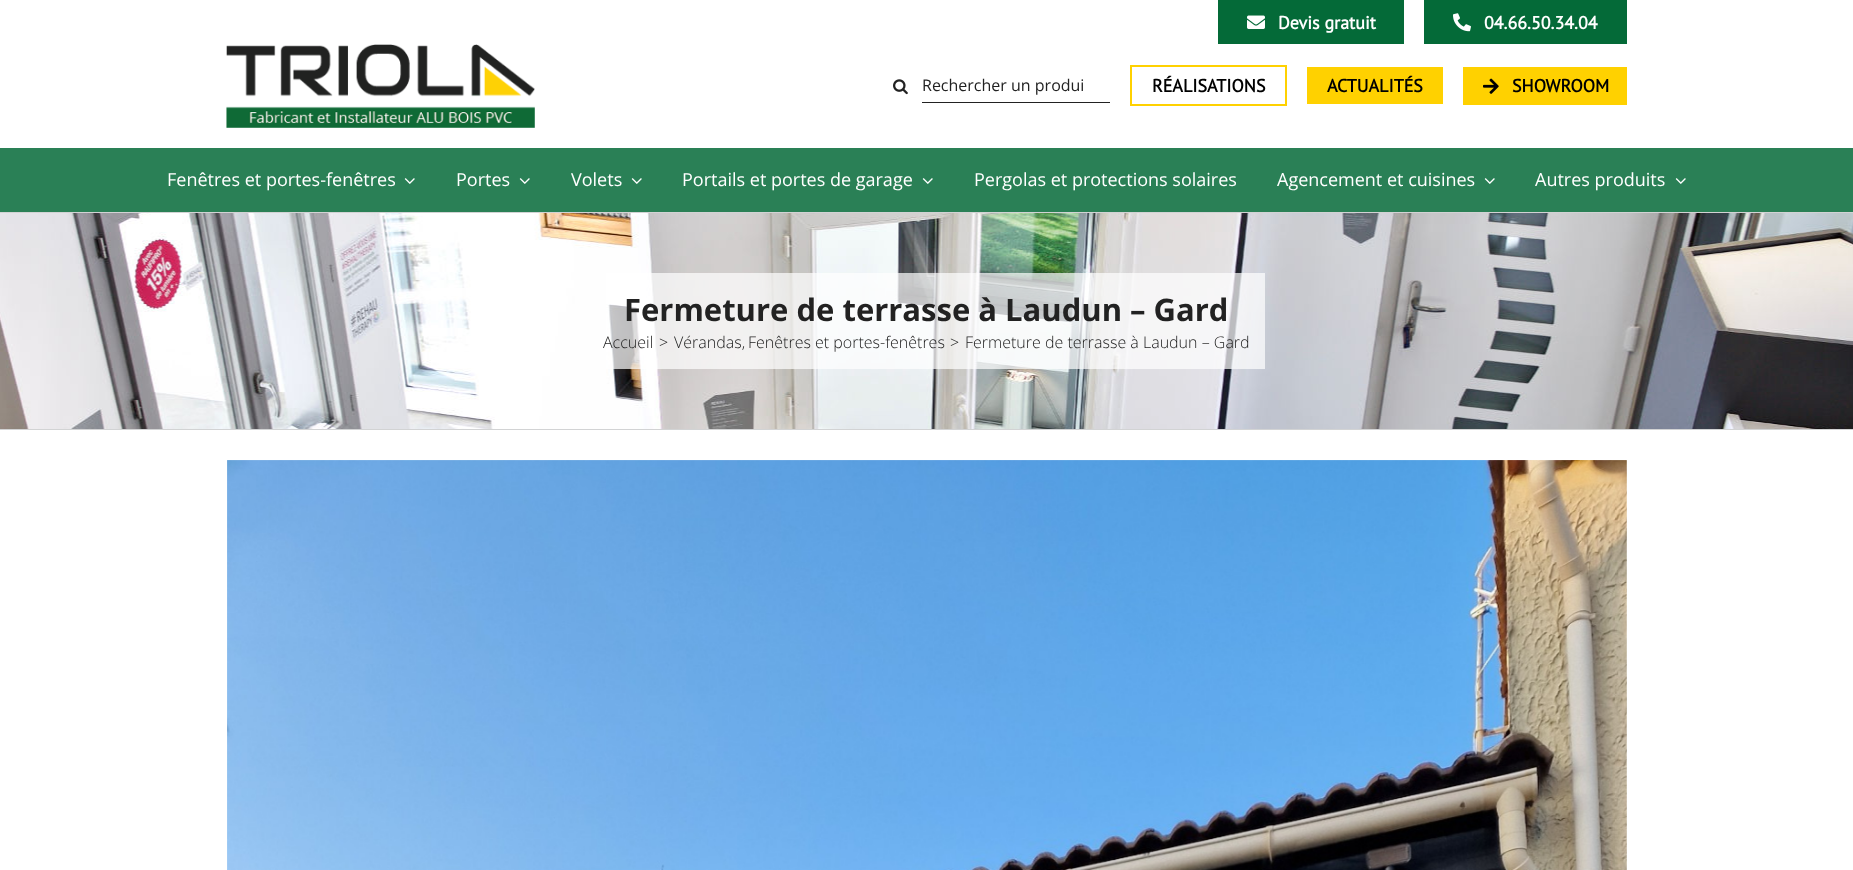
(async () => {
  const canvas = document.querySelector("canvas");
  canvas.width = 1853;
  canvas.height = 870;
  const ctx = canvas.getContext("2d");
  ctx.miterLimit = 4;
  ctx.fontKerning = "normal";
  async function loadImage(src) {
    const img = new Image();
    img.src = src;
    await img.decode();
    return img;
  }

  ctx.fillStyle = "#ffffff";
  ctx.fillRect(0, 0, 1853, 870);
  ctx.fillStyle = "#046a38";
  ctx.fillRect(1218, 0, 186, 44);
  ctx.drawImage(await loadImage("img/1.png"), 1247, 15, 18, 14);
  ctx.fillRect(1424, 0, 203, 44);
  ctx.drawImage(await loadImage("img/2.png"), 1453, 13, 18, 19);
  ctx.drawImage(await loadImage("img/3.png"), 226, 44, 309, 84);
  ctx.drawImage(await loadImage("img/4.png"), 893, 79, 15, 16);
  ctx.fillStyle = "#222222";
  ctx.fillRect(922, 102, 188, 1);
  ctx.strokeStyle = "#ffd100";
  ctx.lineWidth = 2;
  ctx.strokeRect(1131, 66, 155, 39);
  ctx.fillStyle = "#ffd100";
  ctx.fillRect(1307, 67, 136, 37);
  ctx.fillRect(1463, 67, 164, 38);
  ctx.drawImage(await loadImage("img/5.png"), 1483, 78, 16, 16);
  ctx.fillStyle = "#2a8056";
  ctx.fillRect(0, 148, 1853, 64);
  ctx.drawImage(await loadImage("img/6.png"), 404, 178, 11, 6);
  ctx.drawImage(await loadImage("img/6.png"), 519, 178, 11, 6);
  ctx.drawImage(await loadImage("img/6.png"), 631, 178, 11, 6);
  ctx.drawImage(await loadImage("img/6.png"), 922, 178, 11, 6);
  ctx.drawImage(await loadImage("img/6.png"), 1484, 178, 11, 6);
  ctx.drawImage(await loadImage("img/6.png"), 1675, 178, 11, 6);
  ctx.drawImage(await loadImage("img/7.png"), 0, 213, 1853, 216);
  for (const [x, y, w, h, color] of [
    [0, 212, 1853, 1, "#d2d3d4"],
    [0, 429, 1853, 1, "#d2d3d4"],
    [606, 273, 659, 96, "rgba(255, 255, 255, 0.7)"],
  ]) {
    ctx.fillStyle = color;
    ctx.fillRect(x, y, w, h);
  }
  ctx.drawImage(await loadImage("img/8.png"), 227, 460, 1400, 410);
  ctx.font = "bold 18px PT Sans";
  ctx.fillStyle = "#ffffff";
  ctx.fillText("Devis gratuit", 1278, 29);
  ctx.fillText("04.66.50.34.04", 1484, 29);
  ctx.font = "16px Open Sans";
  ctx.fillStyle = "#222222";
  ctx.fillText("Rechercher un produi", 922, 91);
  ctx.font = "bold 18px PT Sans";
  ctx.fillStyle = "#000000";
  for (const [text, x, y] of [
    ["RÉALISATIONS", 1152, 92],
    ["ACTUALITÉS", 1327, 92],
    ["SHOWROOM", 1512, 92],
  ]) {
    ctx.fillText(text, x, y);
  }
  ctx.font = "18px Open Sans";
  ctx.fillStyle = "#ffffff";
  for (const [text, x, y] of [
    ["Fenêtres et portes-fenêtres", 167, 186],
    ["Portes", 456, 186],
    ["Volets", 571, 186],
    ["Portails et portes de garage", 682, 186],
    ["Pergolas et protections solaires", 974, 186],
    ["Agencement et cuisines", 1277, 186],
    ["Autres produits", 1535, 186],
  ]) {
    ctx.fillText(text, x, y);
  }
  ctx.font = "bold 31px Open Sans";
  ctx.fillStyle = "#222222";
  ctx.fillText("Fermeture de terrasse à Laudun – Gard", 624, 321);
  ctx.font = "300 16px Open Sans";
  for (const [text, x, y] of [
    ["Accueil", 603, 348],
    [">", 659, 348],
    ["Vérandas,", 674, 348],
    ["Fenêtres et portes-fenêtres", 748, 348],
    [">", 950, 348],
    ["Fermeture de terrasse à Laudun – Gard", 965, 348],
  ]) {
    ctx.fillText(text, x, y);
  }
})();
